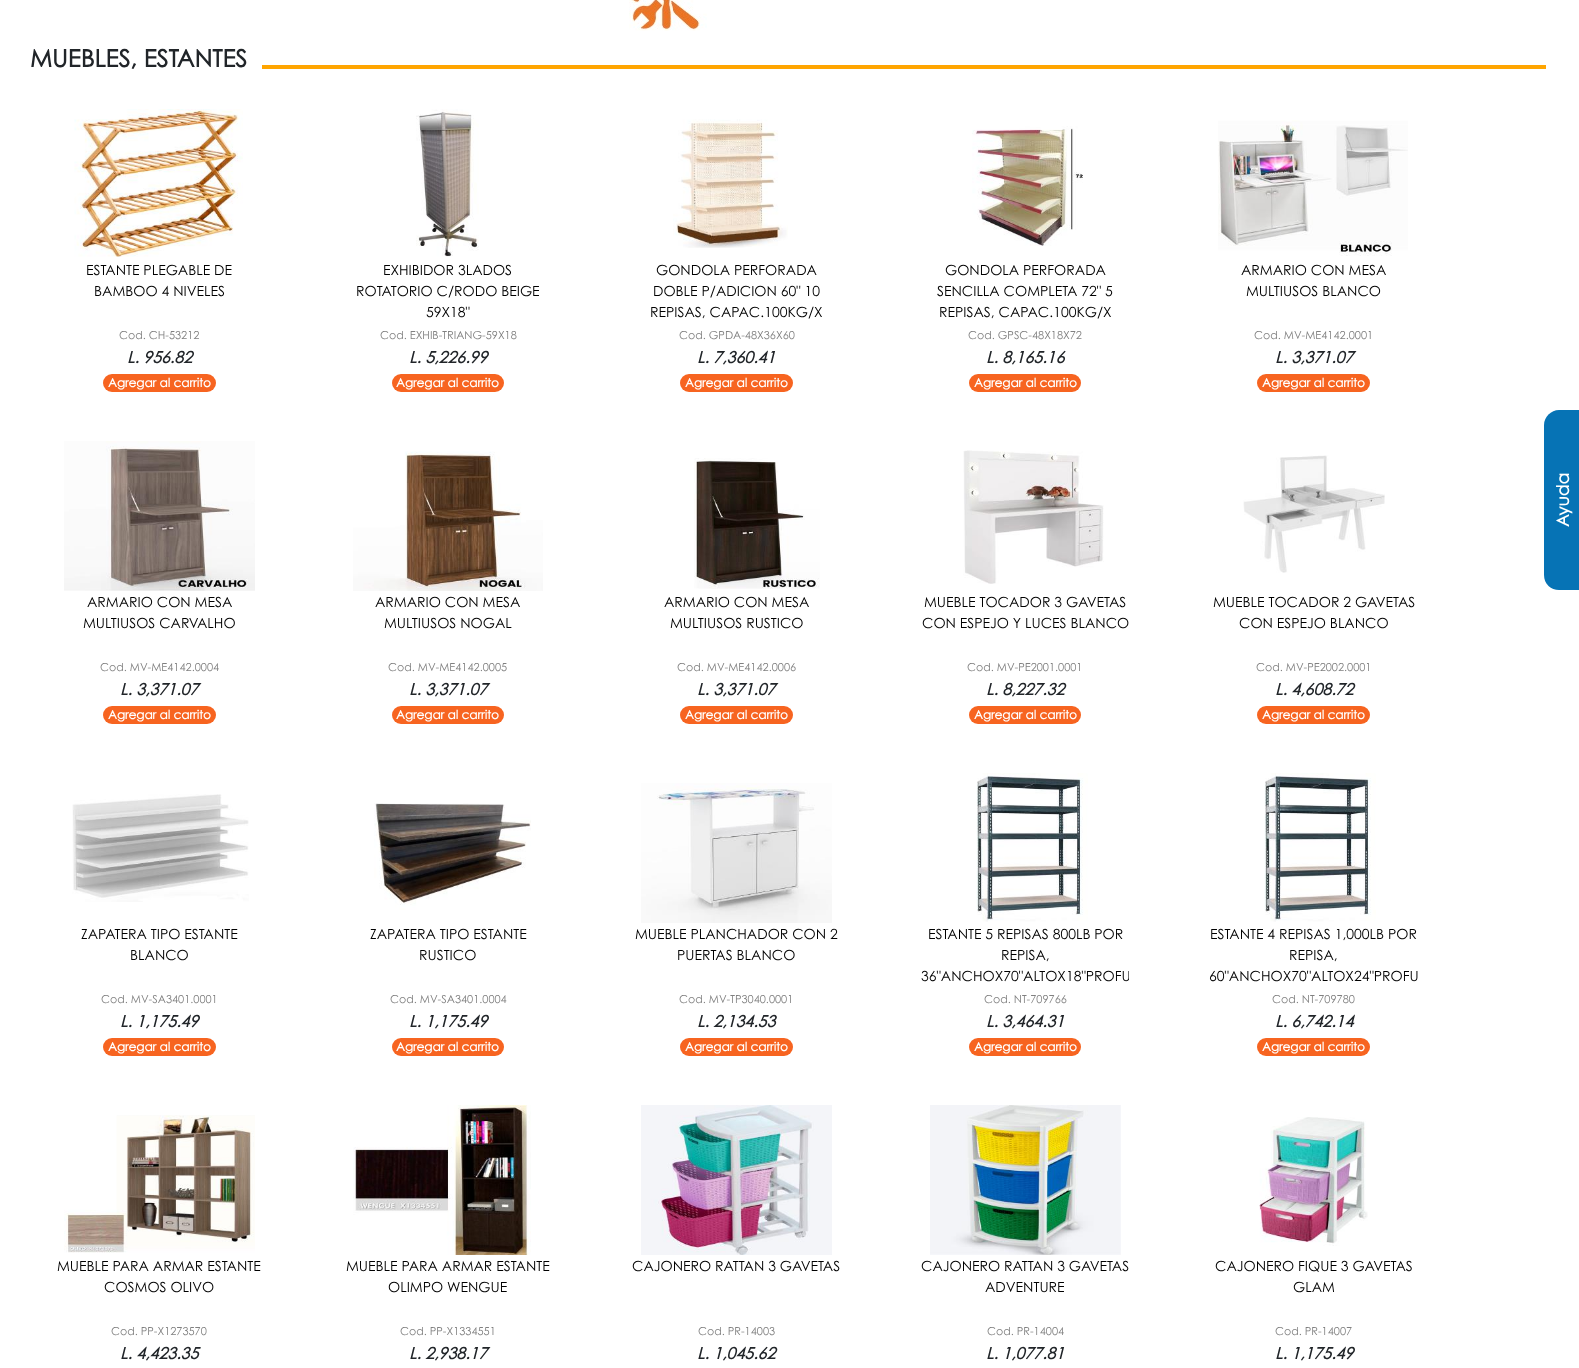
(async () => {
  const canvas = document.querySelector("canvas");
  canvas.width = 1579;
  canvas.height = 1368;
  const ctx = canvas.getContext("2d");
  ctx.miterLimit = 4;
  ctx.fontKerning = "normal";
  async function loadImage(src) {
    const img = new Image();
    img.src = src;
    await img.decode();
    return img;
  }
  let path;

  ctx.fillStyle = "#ffffff";
  ctx.fillRect(0, 0, 1579, 1368);
  ctx.drawImage(await loadImage("img/1.png"), 629, 0, 78, 31);
  ctx.fillStyle = "#ffa500";
  ctx.fillRect(262, 65, 1284, 4);
  ctx.drawImage(await loadImage("img/2.png"), 74, 109, 169, 148);
  ctx.fillStyle = "#f76420";
  ctx.beginPath();
  ctx.roundRect(103, 374, 113, 18, 9);
  ctx.fill();
  ctx.drawImage(await loadImage("img/3.png"), 416, 109, 63, 148);
  ctx.beginPath();
  ctx.roundRect(392, 374, 112, 18, 9);
  ctx.fill();
  ctx.drawImage(await loadImage("img/4.png"), 673, 119, 115, 129);
  ctx.beginPath();
  ctx.roundRect(680, 374, 113, 18, 9);
  ctx.fill();
  ctx.drawImage(await loadImage("img/5.png"), 972, 126, 111, 120);
  ctx.beginPath();
  ctx.roundRect(969, 374, 112, 18, 9);
  ctx.fill();
  ctx.drawImage(await loadImage("img/6.png"), 1218, 120, 190, 136);
  ctx.beginPath();
  ctx.roundRect(1257, 374, 113, 18, 9);
  ctx.fill();
  ctx.drawImage(await loadImage("img/7.png"), 64, 441, 191, 150);
  ctx.beginPath();
  ctx.roundRect(103, 706, 113, 18, 9);
  ctx.fill();
  ctx.drawImage(await loadImage("img/8.png"), 353, 451, 190, 140);
  ctx.beginPath();
  ctx.roundRect(392, 706, 112, 18, 9);
  ctx.fill();
  ctx.drawImage(await loadImage("img/9.png"), 694, 458, 126, 131);
  ctx.beginPath();
  ctx.roundRect(680, 706, 113, 18, 9);
  ctx.fill();
  ctx.drawImage(await loadImage("img/10.png"), 963, 450, 141, 134);
  ctx.beginPath();
  ctx.roundRect(969, 706, 112, 18, 9);
  ctx.fill();
  ctx.drawImage(await loadImage("img/11.png"), 1243, 455, 142, 118);
  ctx.beginPath();
  ctx.roundRect(1257, 706, 113, 18, 9);
  ctx.fill();
  ctx.drawImage(await loadImage("img/12.png"), 72, 794, 177, 108);
  ctx.beginPath();
  ctx.roundRect(103, 1038, 113, 18, 9);
  ctx.fill();
  ctx.drawImage(await loadImage("img/13.png"), 374, 803, 157, 107);
  ctx.beginPath();
  ctx.roundRect(392, 1038, 112, 18, 9);
  ctx.fill();
  ctx.drawImage(await loadImage("img/14.png"), 641, 783, 191, 140);
  ctx.beginPath();
  ctx.roundRect(680, 1038, 113, 18, 9);
  ctx.fill();
  ctx.drawImage(await loadImage("img/15.png"), 976, 773, 112, 149);
  ctx.beginPath();
  ctx.roundRect(969, 1038, 112, 18, 9);
  ctx.fill();
  ctx.drawImage(await loadImage("img/15.png"), 1264, 773, 112, 149);
  ctx.beginPath();
  ctx.roundRect(1257, 1038, 113, 18, 9);
  ctx.fill();
  ctx.drawImage(await loadImage("img/16.png"), 64, 1115, 191, 138);
  ctx.drawImage(await loadImage("img/17.png"), 353, 1105, 178, 150);
  ctx.drawImage(await loadImage("img/18.png"), 641, 1105, 191, 150);
  ctx.drawImage(await loadImage("img/19.png"), 930, 1105, 191, 150);
  ctx.drawImage(await loadImage("img/20.png"), 1259, 1117, 109, 129);
  ctx.fillStyle = "#0673b5";
  path = new Path2D("M1544 575V425C1544 417 1551 410 1559 410H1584V590H1559C1551 590 1544 584 1544 575Z");
  ctx.fill(path);
  ctx.font = "bold 24px Century Gothic";
  ctx.fillStyle = "#212529";
  ctx.fillText("MUEBLES, ESTANTES", 30, 67);
  ctx.font = "14px Century Gothic";
  ctx.fillStyle = "#000000";
  ctx.fillText("ESTANTE PLEGABLE DE", 86, 275);
  ctx.fillText("BAMBOO 4 NIVELES", 94, 296);
  ctx.font = "11px Century Gothic";
  ctx.fillStyle = "#808080";
  ctx.fillText("Cod. CH-53212", 119, 339);
  ctx.font = "italic bold 16px Century Gothic";
  ctx.fillStyle = "#212529";
  ctx.fillText("L. 956.82", 127, 363);
  ctx.font = "bold 12px Century Gothic";
  ctx.fillStyle = "#ffffff";
  ctx.fillText("Agregar al carrito", 108, 387);
  ctx.font = "14px Century Gothic";
  ctx.fillStyle = "#000000";
  for (const [text, x, y] of [
    ["EXHIBIDOR 3LADOS", 383, 275],
    ["ROTATORIO C/RODO BEIGE", 356, 296],
    ["59X18\"", 426, 317],
  ]) {
    ctx.fillText(text, x, y);
  }
  ctx.font = "11px Century Gothic";
  ctx.fillStyle = "#808080";
  ctx.fillText("Cod. EXHIB-TRIANG-59X18", 380, 339);
  ctx.font = "italic bold 16px Century Gothic";
  ctx.fillStyle = "#212529";
  ctx.fillText("L. 5,226.99", 409, 363);
  ctx.font = "bold 12px Century Gothic";
  ctx.fillStyle = "#ffffff";
  ctx.fillText("Agregar al carrito", 396, 387);
  ctx.font = "14px Century Gothic";
  ctx.fillStyle = "#000000";
  for (const [text, x, y] of [
    ["GONDOLA PERFORADA", 656, 275],
    ["DOBLE P/ADICION 60\" 10", 653, 296],
    ["REPISAS, CAPAC.100KG/X", 650, 317],
  ]) {
    ctx.fillText(text, x, y);
  }
  ctx.font = "11px Century Gothic";
  ctx.fillStyle = "#808080";
  ctx.fillText("Cod. GPDA-48X36X60", 679, 339);
  ctx.font = "italic bold 16px Century Gothic";
  ctx.fillStyle = "#212529";
  ctx.fillText("L. 7,360.41", 697, 363);
  ctx.font = "bold 12px Century Gothic";
  ctx.fillStyle = "#ffffff";
  ctx.fillText("Agregar al carrito", 685, 387);
  ctx.font = "14px Century Gothic";
  ctx.fillStyle = "#000000";
  for (const [text, x, y] of [
    ["GONDOLA PERFORADA", 945, 275],
    ["SENCILLA COMPLETA 72\" 5", 937, 296],
    ["REPISAS, CAPAC.100KG/X", 939, 317],
  ]) {
    ctx.fillText(text, x, y);
  }
  ctx.font = "11px Century Gothic";
  ctx.fillStyle = "#808080";
  ctx.fillText("Cod. GPSC-48X18X72", 968, 339);
  ctx.font = "italic bold 16px Century Gothic";
  ctx.fillStyle = "#212529";
  ctx.fillText("L. 8,165.16", 986, 363);
  ctx.font = "bold 12px Century Gothic";
  ctx.fillStyle = "#ffffff";
  ctx.fillText("Agregar al carrito", 974, 387);
  ctx.font = "14px Century Gothic";
  ctx.fillStyle = "#000000";
  ctx.fillText("ARMARIO CON MESA", 1241, 275);
  ctx.fillText("MULTIUSOS BLANCO", 1246, 296);
  ctx.font = "11px Century Gothic";
  ctx.fillStyle = "#808080";
  ctx.fillText("Cod. MV-ME4142.0001", 1254, 339);
  ctx.font = "italic bold 16px Century Gothic";
  ctx.fillStyle = "#212529";
  ctx.fillText("L. 3,371.07", 1275, 363);
  ctx.font = "bold 12px Century Gothic";
  ctx.fillStyle = "#ffffff";
  ctx.fillText("Agregar al carrito", 1262, 387);
  ctx.font = "14px Century Gothic";
  ctx.fillStyle = "#000000";
  ctx.fillText("ARMARIO CON MESA", 87, 607);
  ctx.fillText("MULTIUSOS CARVALHO", 83, 628);
  ctx.font = "11px Century Gothic";
  ctx.fillStyle = "#808080";
  ctx.fillText("Cod. MV-ME4142.0004", 100, 671);
  ctx.font = "italic bold 16px Century Gothic";
  ctx.fillStyle = "#212529";
  ctx.fillText("L. 3,371.07", 120, 695);
  ctx.font = "bold 12px Century Gothic";
  ctx.fillStyle = "#ffffff";
  ctx.fillText("Agregar al carrito", 108, 719);
  ctx.font = "14px Century Gothic";
  ctx.fillStyle = "#000000";
  ctx.fillText("ARMARIO CON MESA", 375, 607);
  ctx.fillText("MULTIUSOS NOGAL", 384, 628);
  ctx.font = "11px Century Gothic";
  ctx.fillStyle = "#808080";
  ctx.fillText("Cod. MV-ME4142.0005", 388, 671);
  ctx.font = "italic bold 16px Century Gothic";
  ctx.fillStyle = "#212529";
  ctx.fillText("L. 3,371.07", 409, 695);
  ctx.font = "bold 12px Century Gothic";
  ctx.fillStyle = "#ffffff";
  ctx.fillText("Agregar al carrito", 396, 719);
  ctx.font = "14px Century Gothic";
  ctx.fillStyle = "#000000";
  ctx.fillText("ARMARIO CON MESA", 664, 607);
  ctx.fillText("MULTIUSOS RUSTICO", 670, 628);
  ctx.font = "11px Century Gothic";
  ctx.fillStyle = "#808080";
  ctx.fillText("Cod. MV-ME4142.0006", 677, 671);
  ctx.font = "italic bold 16px Century Gothic";
  ctx.fillStyle = "#212529";
  ctx.fillText("L. 3,371.07", 697, 695);
  ctx.font = "bold 12px Century Gothic";
  ctx.fillStyle = "#ffffff";
  ctx.fillText("Agregar al carrito", 685, 719);
  ctx.font = "14px Century Gothic";
  ctx.fillStyle = "#000000";
  ctx.fillText("MUEBLE TOCADOR 3 GAVETAS", 924, 607);
  ctx.fillText("CON ESPEJO Y LUCES BLANCO", 922, 628);
  ctx.font = "11px Century Gothic";
  ctx.fillStyle = "#808080";
  ctx.fillText("Cod. MV-PE2001.0001", 967, 671);
  ctx.font = "italic bold 16px Century Gothic";
  ctx.fillStyle = "#212529";
  ctx.fillText("L. 8,227.32", 986, 695);
  ctx.font = "bold 12px Century Gothic";
  ctx.fillStyle = "#ffffff";
  ctx.fillText("Agregar al carrito", 974, 719);
  ctx.font = "14px Century Gothic";
  ctx.fillStyle = "#000000";
  ctx.fillText("MUEBLE TOCADOR 2 GAVETAS", 1213, 607);
  ctx.fillText("CON ESPEJO BLANCO", 1239, 628);
  ctx.font = "11px Century Gothic";
  ctx.fillStyle = "#808080";
  ctx.fillText("Cod. MV-PE2002.0001", 1256, 671);
  ctx.font = "italic bold 16px Century Gothic";
  ctx.fillStyle = "#212529";
  ctx.fillText("L. 4,608.72", 1275, 695);
  ctx.font = "bold 12px Century Gothic";
  ctx.fillStyle = "#ffffff";
  ctx.fillText("Agregar al carrito", 1262, 719);
  ctx.font = "14px Century Gothic";
  ctx.fillStyle = "#000000";
  ctx.fillText("ZAPATERA TIPO ESTANTE", 81, 939);
  ctx.fillText("BLANCO", 130, 960);
  ctx.font = "11px Century Gothic";
  ctx.fillStyle = "#808080";
  ctx.fillText("Cod. MV-SA3401.0001", 101, 1003);
  ctx.font = "italic bold 16px Century Gothic";
  ctx.fillStyle = "#212529";
  ctx.fillText("L. 1,175.49", 120, 1027);
  ctx.font = "bold 12px Century Gothic";
  ctx.fillStyle = "#ffffff";
  ctx.fillText("Agregar al carrito", 108, 1051);
  ctx.font = "14px Century Gothic";
  ctx.fillStyle = "#000000";
  ctx.fillText("ZAPATERA TIPO ESTANTE", 370, 939);
  ctx.fillText("RUSTICO", 419, 960);
  ctx.font = "11px Century Gothic";
  ctx.fillStyle = "#808080";
  ctx.fillText("Cod. MV-SA3401.0004", 390, 1003);
  ctx.font = "italic bold 16px Century Gothic";
  ctx.fillStyle = "#212529";
  ctx.fillText("L. 1,175.49", 409, 1027);
  ctx.font = "bold 12px Century Gothic";
  ctx.fillStyle = "#ffffff";
  ctx.fillText("Agregar al carrito", 396, 1051);
  ctx.font = "14px Century Gothic";
  ctx.fillStyle = "#000000";
  ctx.fillText("MUEBLE PLANCHADOR CON 2", 635, 939);
  ctx.fillText("PUERTAS BLANCO", 677, 960);
  ctx.font = "11px Century Gothic";
  ctx.fillStyle = "#808080";
  ctx.fillText("Cod. MV-TP3040.0001", 679, 1003);
  ctx.font = "italic bold 16px Century Gothic";
  ctx.fillStyle = "#212529";
  ctx.fillText("L. 2,134.53", 697, 1027);
  ctx.font = "bold 12px Century Gothic";
  ctx.fillStyle = "#ffffff";
  ctx.fillText("Agregar al carrito", 685, 1051);
  ctx.font = "14px Century Gothic";
  ctx.fillStyle = "#000000";
  ctx.fillText("ESTANTE 5 REPISAS 800LB POR", 928, 939);
  ctx.fillText("REPISA,", 1001, 960);
  ctx.save();
  ctx.beginPath();
  ctx.rect(921, 923, 208, 62);
  ctx.clip();
  ctx.fillText("36\"ANCHOX70\"ALTOX18\"PROFU", 921, 981);
  ctx.restore();
  ctx.font = "11px Century Gothic";
  ctx.fillStyle = "#808080";
  ctx.fillText("Cod. NT-709766", 984, 1003);
  ctx.font = "italic bold 16px Century Gothic";
  ctx.fillStyle = "#212529";
  ctx.fillText("L. 3,464.31", 986, 1027);
  ctx.font = "bold 12px Century Gothic";
  ctx.fillStyle = "#ffffff";
  ctx.fillText("Agregar al carrito", 974, 1051);
  ctx.font = "14px Century Gothic";
  ctx.fillStyle = "#000000";
  for (const [text, x, y] of [
    ["ESTANTE 4 REPISAS 1,000LB POR", 1210, 939],
    ["REPISA,", 1289, 960],
    ["60\"ANCHOX70\"ALTOX24\"PROFU", 1209, 981],
  ]) {
    ctx.fillText(text, x, y);
  }
  ctx.font = "11px Century Gothic";
  ctx.fillStyle = "#808080";
  ctx.fillText("Cod. NT-709780", 1272, 1003);
  ctx.font = "italic bold 16px Century Gothic";
  ctx.fillStyle = "#212529";
  ctx.fillText("L. 6,742.14", 1275, 1027);
  ctx.font = "bold 12px Century Gothic";
  ctx.fillStyle = "#ffffff";
  ctx.fillText("Agregar al carrito", 1262, 1051);
  ctx.font = "14px Century Gothic";
  ctx.fillStyle = "#000000";
  ctx.fillText("MUEBLE PARA ARMAR ESTANTE", 57, 1271);
  ctx.fillText("COSMOS OLIVO", 104, 1292);
  ctx.font = "11px Century Gothic";
  ctx.fillStyle = "#808080";
  ctx.fillText("Cod. PP-X1273570", 111, 1335);
  ctx.font = "italic bold 16px Century Gothic";
  ctx.fillStyle = "#212529";
  ctx.fillText("L. 4,423.35", 120, 1359);
  ctx.font = "14px Century Gothic";
  ctx.fillStyle = "#000000";
  ctx.fillText("MUEBLE PARA ARMAR ESTANTE", 346, 1271);
  ctx.fillText("OLIMPO WENGUE", 388, 1292);
  ctx.font = "11px Century Gothic";
  ctx.fillStyle = "#808080";
  ctx.fillText("Cod. PP-X1334551", 400, 1335);
  ctx.font = "italic bold 16px Century Gothic";
  ctx.fillStyle = "#212529";
  ctx.fillText("L. 2,938.17", 409, 1359);
  ctx.font = "14px Century Gothic";
  ctx.fillStyle = "#000000";
  ctx.fillText("CAJONERO RATTAN 3 GAVETAS", 632, 1271);
  ctx.font = "11px Century Gothic";
  ctx.fillStyle = "#808080";
  ctx.fillText("Cod. PR-14003", 698, 1335);
  ctx.font = "italic bold 16px Century Gothic";
  ctx.fillStyle = "#212529";
  ctx.fillText("L. 1,045.62", 697, 1359);
  ctx.font = "14px Century Gothic";
  ctx.fillStyle = "#000000";
  ctx.fillText("CAJONERO RATTAN 3 GAVETAS", 921, 1271);
  ctx.fillText("ADVENTURE", 985, 1292);
  ctx.font = "11px Century Gothic";
  ctx.fillStyle = "#808080";
  ctx.fillText("Cod. PR-14004", 987, 1335);
  ctx.font = "italic bold 16px Century Gothic";
  ctx.fillStyle = "#212529";
  ctx.fillText("L. 1,077.81", 986, 1359);
  ctx.font = "14px Century Gothic";
  ctx.fillStyle = "#000000";
  ctx.fillText("CAJONERO FIQUE 3 GAVETAS", 1215, 1271);
  ctx.fillText("GLAM", 1293, 1292);
  ctx.font = "11px Century Gothic";
  ctx.fillStyle = "#808080";
  ctx.fillText("Cod. PR-14007", 1275, 1335);
  ctx.font = "italic bold 16px Century Gothic";
  ctx.fillStyle = "#212529";
  ctx.fillText("L. 1,175.49", 1275, 1359);
  ctx.font = "bold 17px Century Gothic";
  ctx.fillStyle = "#ffffff";
  ctx.save();
  ctx.translate(1569, 527);
  ctx.rotate(-90 * Math.PI / 180);
  ctx.fillText("Ayuda", 0, 0);
  ctx.restore();
})();
